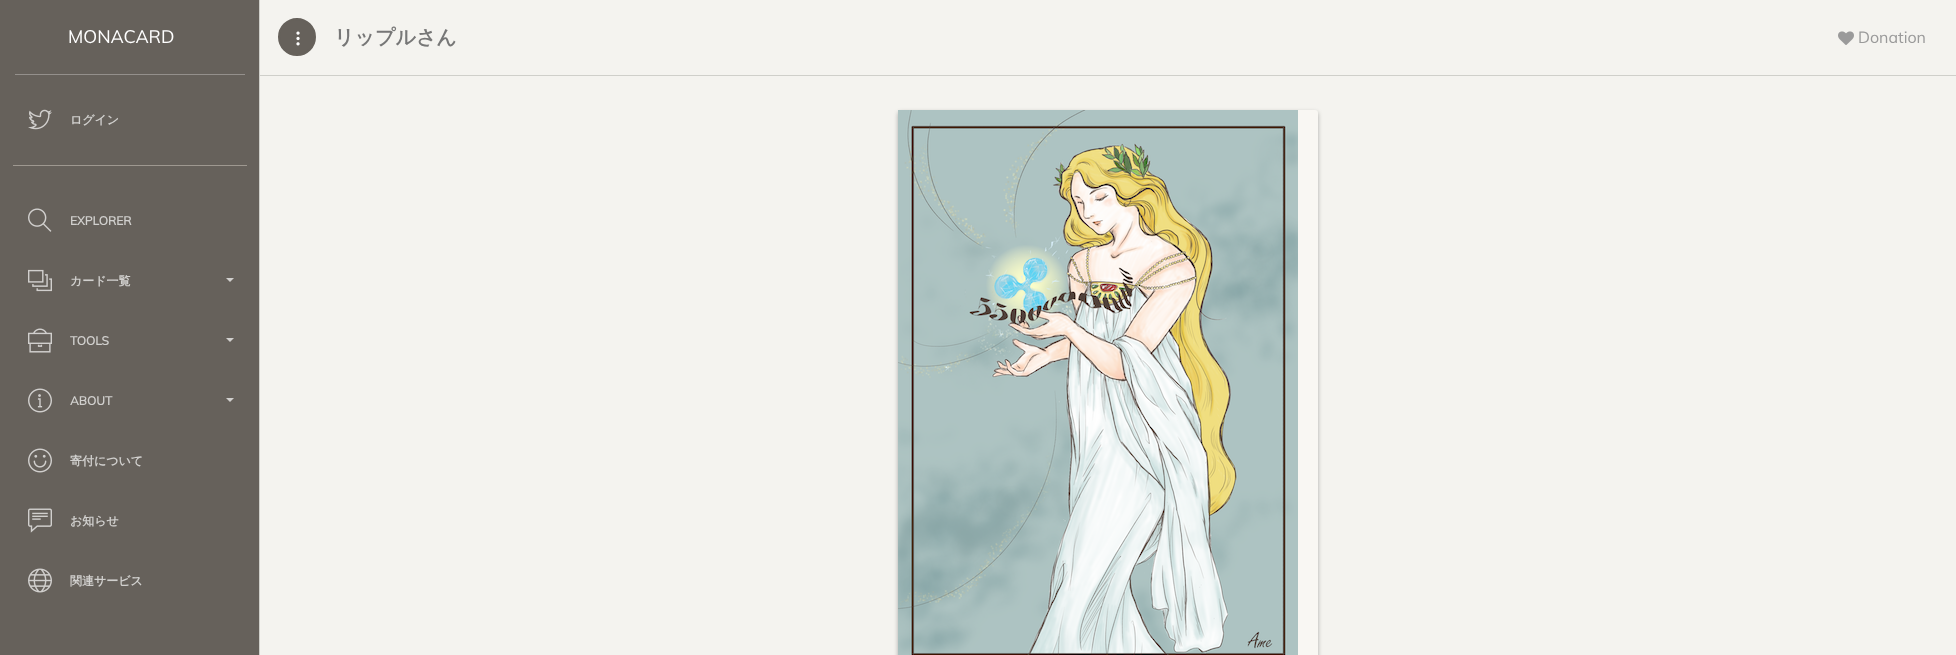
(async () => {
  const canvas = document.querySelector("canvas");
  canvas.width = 1956;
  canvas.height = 655;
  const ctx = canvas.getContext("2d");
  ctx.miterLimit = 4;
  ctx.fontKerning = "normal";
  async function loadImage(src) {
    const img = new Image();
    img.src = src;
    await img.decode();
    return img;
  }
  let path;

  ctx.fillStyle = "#f4f3ef";
  ctx.fillRect(0, 0, 1956, 655);
  for (const [x, y, w, h, color] of [
    [0, 0, 259, 655, "#66615b"],
    [259, 0, 1, 655, "#cfcfca"],
    [15, 74, 230, 1, "#94908c"],
  ]) {
    ctx.fillStyle = color;
    ctx.fillRect(x, y, w, h);
  }
  ctx.drawImage(await loadImage("img/1.png"), 28, 109, 24, 21);
  ctx.fillStyle = "#9e9890";
  ctx.fillRect(13, 165, 234, 1);
  ctx.drawImage(await loadImage("img/2.png"), 28, 208, 24, 24);
  ctx.drawImage(await loadImage("img/3.png"), 28, 269, 24, 23);
  ctx.fillStyle = "#d1d0ce";
  path = new Path2D("M226 278H234L230 282Z");
  ctx.fill(path);
  ctx.drawImage(await loadImage("img/4.png"), 28, 328, 24, 25);
  path = new Path2D("M226 338H234L230 342Z");
  ctx.fill(path);
  ctx.drawImage(await loadImage("img/5.png"), 28, 388, 24, 25);
  path = new Path2D("M226 398H234L230 402Z");
  ctx.fill(path);
  ctx.drawImage(await loadImage("img/6.png"), 28, 448, 24, 25);
  ctx.drawImage(await loadImage("img/7.png"), 28, 508, 24, 25);
  ctx.drawImage(await loadImage("img/8.png"), 28, 568, 24, 25);
  ctx.fillStyle = "#cfcfca";
  ctx.fillRect(260, 75, 1696, 1);
  ctx.fillStyle = "#66615b";
  ctx.beginPath();
  ctx.arc(297, 37, 18, 0, Math.PI * 2);
  ctx.fill();
  ctx.strokeStyle = "#66615b";
  ctx.lineWidth = 2;
  ctx.stroke();
  ctx.drawImage(await loadImage("img/9.png"), 296, 31, 4, 15);
  ctx.drawImage(await loadImage("img/10.png"), 1838, 31, 16, 14);
  ctx.fillStyle = "rgba(0, 0, 0, 0.3)";
  ctx.filter = "blur(2px)";
  ctx.beginPath();
  ctx.roundRect(898, 112, 420, 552, 3);
  ctx.fill();
  ctx.filter = "none";
  ctx.fillStyle = "#f9f7f3";
  ctx.beginPath();
  ctx.roundRect(898, 110, 420, 545, [3, 3, 0, 0]);
  ctx.fill();
  ctx.drawImage(await loadImage("img/11.png"), 898, 110, 400, 545);
  ctx.font = "18px Muli";
  ctx.fillStyle = "#ffffff";
  ctx.fillText("MONACARD", 68, 43);
  ctx.font = "bold 12px WenQuanYi Zen Hei";
  ctx.fillStyle = "#d1d0ce";
  ctx.fillText("ログイン", 70, 124);
  ctx.font = "bold 12px Muli";
  ctx.fillText("EXPLORER", 70, 225);
  ctx.font = "bold 12px WenQuanYi Zen Hei";
  ctx.fillText("カード一覧", 70, 285);
  ctx.font = "bold 12px Muli";
  ctx.fillText("TOOLS", 70, 345);
  ctx.fillText("ABOUT", 70, 405);
  ctx.font = "bold 12px WenQuanYi Zen Hei";
  for (const [text, x, y] of [
    ["寄付について", 70, 465],
    ["お知らせ", 70, 525],
    ["関連サービス", 70, 585],
  ]) {
    ctx.fillText(text, x, y);
  }
  ctx.font = "bold 20px WenQuanYi Zen Hei";
  ctx.fillStyle = "#777777";
  ctx.fillText("リップルさん", 334, 44);
  ctx.font = "16px Muli";
  ctx.fillStyle = "#9a9a9a";
  ctx.fillText("Donation", 1858, 43);
})();
